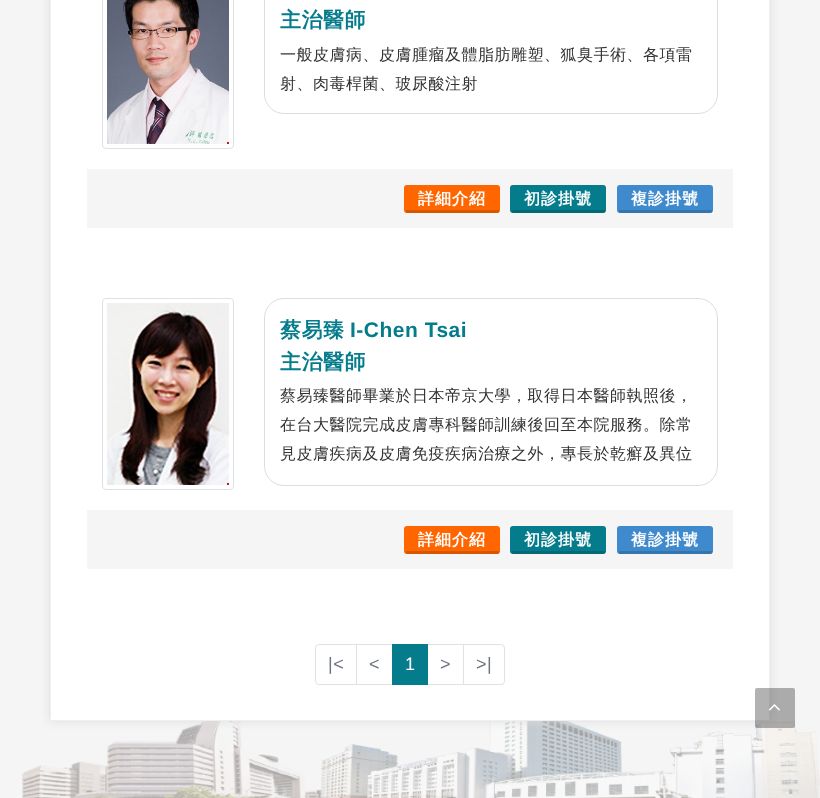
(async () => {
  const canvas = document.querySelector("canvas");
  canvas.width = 820;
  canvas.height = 798;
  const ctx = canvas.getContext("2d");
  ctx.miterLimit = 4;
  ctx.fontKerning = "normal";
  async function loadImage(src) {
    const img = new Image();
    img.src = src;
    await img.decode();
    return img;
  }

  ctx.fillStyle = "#f5f5f5";
  ctx.fillRect(0, 0, 820, 798);
  ctx.drawImage(await loadImage("img/1.png"), 22, 721, 798, 77);
  ctx.fillStyle = "#dddddd";
  ctx.filter = "blur(5px)";
  ctx.beginPath();
  ctx.rect(50, -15, 720, 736);
  ctx.fill();
  ctx.filter = "none";
  ctx.fillStyle = "#ffffff";
  ctx.beginPath();
  ctx.rect(50.5, -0.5, 719, 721);
  ctx.fill();
  ctx.strokeStyle = "#efefef";
  ctx.stroke();
  ctx.beginPath();
  ctx.roundRect(102.5, -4.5, 131, 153, 3.5);
  ctx.strokeStyle = "#dee2e6";
  ctx.stroke();
  ctx.drawImage(await loadImage("img/2.png"), 107, 0, 122, 144);
  ctx.beginPath();
  ctx.roundRect(264.5, -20.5, 453, 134, 19.5);
  ctx.strokeStyle = "#dddddd";
  ctx.stroke();
  ctx.fillStyle = "#f5f5f5";
  ctx.fillRect(87, 169, 646, 59);
  ctx.fillStyle = "#ff6600";
  ctx.beginPath();
  ctx.roundRect(404, 185, 96, 28, 3);
  ctx.fill();
  ctx.fillStyle = "rgba(0, 0, 0, 0.15)";
  ctx.fillRect(406, 210, 93, 3);
  ctx.fillStyle = "#047c8c";
  ctx.beginPath();
  ctx.roundRect(510, 185, 96, 28, 3);
  ctx.fill();
  ctx.fillStyle = "rgba(0, 0, 0, 0.15)";
  ctx.fillRect(512, 210, 93, 3);
  ctx.fillStyle = "#3f8acd";
  ctx.beginPath();
  ctx.roundRect(617, 185, 96, 28, 3);
  ctx.fill();
  ctx.fillStyle = "rgba(0, 0, 0, 0.15)";
  ctx.fillRect(619, 210, 93, 3);
  ctx.beginPath();
  ctx.roundRect(102.5, 298.5, 131, 191, 3.5);
  ctx.strokeStyle = "#dee2e6";
  ctx.stroke();
  ctx.drawImage(await loadImage("img/3.png"), 107, 303, 122, 182);
  ctx.beginPath();
  ctx.roundRect(264.5, 298.5, 453, 187, 19.5);
  ctx.strokeStyle = "#dddddd";
  ctx.stroke();
  ctx.fillStyle = "#f5f5f5";
  ctx.fillRect(87, 510, 646, 59);
  ctx.fillStyle = "#ff6600";
  ctx.beginPath();
  ctx.roundRect(404, 526, 96, 28, 3);
  ctx.fill();
  ctx.fillStyle = "rgba(0, 0, 0, 0.15)";
  ctx.fillRect(406, 551, 93, 3);
  ctx.fillStyle = "#047c8c";
  ctx.beginPath();
  ctx.roundRect(510, 526, 96, 28, 3);
  ctx.fill();
  ctx.fillStyle = "rgba(0, 0, 0, 0.15)";
  ctx.fillRect(512, 551, 93, 3);
  ctx.fillStyle = "#3f8acd";
  ctx.beginPath();
  ctx.roundRect(617, 526, 96, 28, 3);
  ctx.fill();
  ctx.fillStyle = "rgba(0, 0, 0, 0.15)";
  ctx.fillRect(619, 551, 93, 3);
  ctx.beginPath();
  ctx.roundRect(315.5, 644.5, 41, 40, [3.5, 0, 0, 3.5]);
  ctx.strokeStyle = "#dee2e6";
  ctx.stroke();
  ctx.strokeRect(356.5, 644.5, 36, 40);
  ctx.strokeRect(427.5, 644.5, 36, 40);
  ctx.fillStyle = "#047c8c";
  ctx.fillRect(392, 644, 36, 41);
  ctx.fillStyle = "#ffffff";
  ctx.beginPath();
  ctx.roundRect(463.5, 644.5, 41, 40, [0, 3.5, 3.5, 0]);
  ctx.fill();
  ctx.stroke();
  ctx.fillStyle = "rgba(0, 0, 0, 0.3)";
  ctx.beginPath();
  ctx.roundRect(755, 688, 40, 40, 2);
  ctx.fill();
  ctx.drawImage(await loadImage("img/4.png"), 769, 704, 11, 7);
  ctx.letterSpacing = "0.5px";
  ctx.font = "bold 21px WenQuanYi Zen Hei";
  ctx.fillStyle = "#047c8c";
  ctx.fillText("主治醫師", 280, 27);
  ctx.font = "500 16px WenQuanYi Zen Hei";
  ctx.fillStyle = "#333333";
  ctx.fillText("一般皮膚病、皮膚腫瘤及體脂肪雕塑、狐臭手術、各項雷", 280, 60);
  ctx.fillText("射、肉毒桿菌、玻尿酸注射", 280, 89);
  ctx.letterSpacing = "1px";
  ctx.font = "bold 16px WenQuanYi Zen Hei";
  ctx.fillStyle = "#ffffff";
  for (const [text, x, y] of [
    ["詳細介紹", 418, 204],
    ["初診掛號", 524, 204],
    ["複診掛號", 631, 204],
  ]) {
    ctx.fillText(text, x, y);
  }
  ctx.letterSpacing = "0.5px";
  ctx.font = "bold 21px WenQuanYi Zen Hei";
  ctx.fillStyle = "#047c8c";
  ctx.fillText("蔡易臻", 280, 337);
  ctx.font = "bold 21px Liberation Sans";
  ctx.fillText("I-Chen Tsai", 350, 337);
  ctx.font = "bold 21px WenQuanYi Zen Hei";
  ctx.fillText("主治醫師", 280, 369);
  ctx.font = "500 16px WenQuanYi Zen Hei";
  ctx.fillStyle = "#333333";
  for (const [text, x, y] of [
    ["蔡易臻醫師畢業於日本帝京大學，取得日本醫師執照後，", 280, 401],
    ["在台大醫院完成皮膚專科醫師訓練後回至本院服務。除常", 280, 430],
    ["見皮膚疾病及皮膚免疫疾病治療之外，專長於乾癬及異位", 280, 459],
  ]) {
    ctx.fillText(text, x, y);
  }
  ctx.letterSpacing = "1px";
  ctx.font = "bold 16px WenQuanYi Zen Hei";
  ctx.fillStyle = "#ffffff";
  for (const [text, x, y] of [
    ["詳細介紹", 418, 545],
    ["初診掛號", 524, 545],
    ["複診掛號", 631, 545],
  ]) {
    ctx.fillText(text, x, y);
  }
  ctx.letterSpacing = "0.5px";
  ctx.font = "18px Liberation Sans";
  ctx.fillStyle = "#6c757d";
  ctx.fillText("|<", 328, 670);
  ctx.fillText("<", 369, 670);
  ctx.fillStyle = "#ffffff";
  ctx.fillText("1", 405, 670);
  ctx.fillStyle = "#6c757d";
  ctx.fillText(">", 440, 670);
  ctx.fillText(">|", 476, 670);
})();
